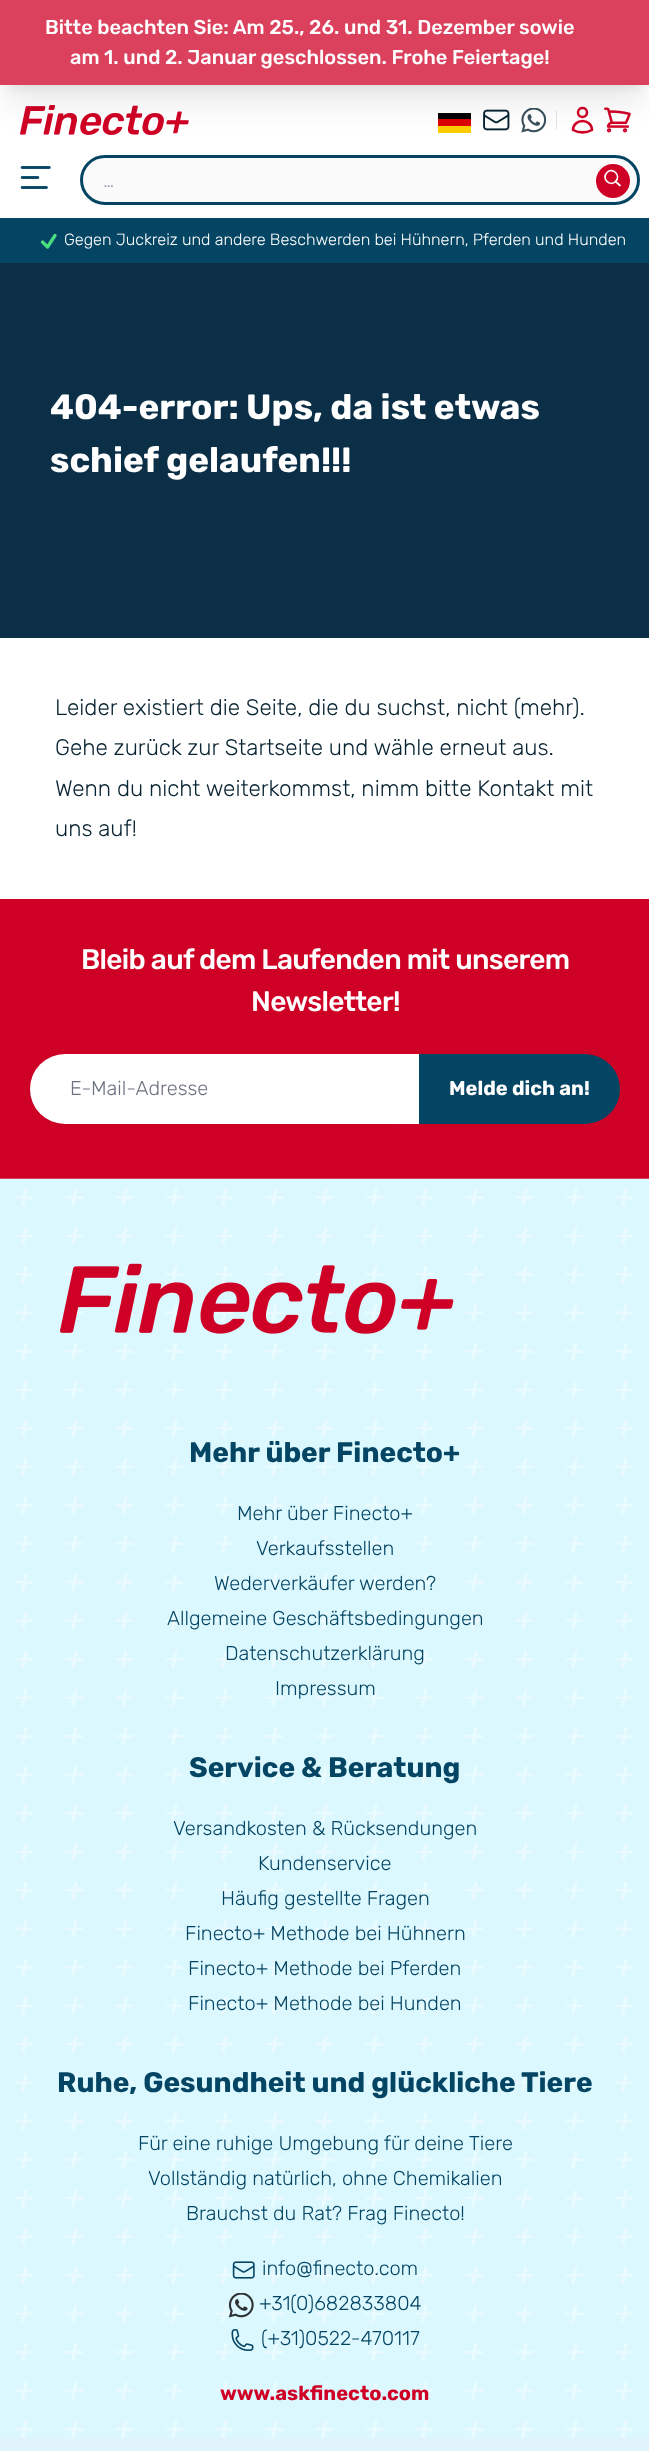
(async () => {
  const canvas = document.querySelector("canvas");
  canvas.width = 649;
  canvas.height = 2451;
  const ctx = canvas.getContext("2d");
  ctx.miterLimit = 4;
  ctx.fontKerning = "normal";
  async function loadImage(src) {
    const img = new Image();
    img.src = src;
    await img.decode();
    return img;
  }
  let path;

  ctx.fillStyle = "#ffffff";
  ctx.fillRect(0, 0, 649, 2451);
  ctx.drawImage(await loadImage("img/1.png"), 20, 105, 169, 30);
  path = new Path2D("M587 112.5C587 118.5 578 118.5 578 112.5C578 106.5 587 106.5 587 112.5ZM573 130C573.5 118 591.5 118 592 130C586 133 579 133 573 130Z");
  ctx.strokeStyle = "#cf0025";
  ctx.lineWidth = 2.5;
  ctx.lineCap = "round";
  ctx.lineJoin = "round";
  ctx.stroke(path);
  ctx.fillStyle = "rgba(64, 64, 64, 0.1)";
  ctx.filter = "blur(6px)";
  ctx.beginPath();
  ctx.rect(8, 18, 635, 70);
  ctx.fill();
  ctx.filter = "none";
  for (const [x, y, w, h, color] of [
    [438, 113, 33, 6, "#000000"],
    [438, 119, 33, 7, "#dd0000"],
    [438, 126, 33, 7, "#ffce00"],
  ]) {
    ctx.fillStyle = color;
    ctx.fillRect(x, y, w, h);
  }
  ctx.drawImage(await loadImage("img/2.png"), 483, 109, 27, 22);
  ctx.drawImage(await loadImage("img/4.png"), 604, 107, 27, 26);
  ctx.fillStyle = "rgba(0, 0, 0, 0.08)";
  ctx.filter = "blur(15.5px)";
  ctx.beginPath();
  ctx.rect(6, 31, 638, 73);
  ctx.fill();
  ctx.filter = "none";
  ctx.fillStyle = "#db405c";
  ctx.fillRect(0, 0, 649, 85);
  ctx.drawImage(await loadImage("img/3.png"), 521, 108, 25, 25);
  ctx.fillStyle = "rgba(199, 199, 199, 0.5)";
  ctx.fillRect(556, 110, 1, 20);
  ctx.drawImage(await loadImage("img/5.png"), 20, 166, 31, 23);
  ctx.fillStyle = "#fafafa";
  ctx.beginPath();
  ctx.roundRect(81.5, 156.5, 557, 47, 23.5);
  ctx.fill();
  ctx.strokeStyle = "#054564";
  ctx.lineWidth = 3;
  ctx.lineJoin = "miter";
  ctx.stroke();
  ctx.fillStyle = "#cf0025";
  ctx.beginPath();
  ctx.arc(613, 181, 17, 0, Math.PI * 2);
  ctx.fill();
  path = new Path2D("M620 185.5L615.5 181.5M615.5 181.5C621.5 175.5 612.5 166.5 607 172.5C601 178.5 610 187 615.5 181.5Z");
  ctx.strokeStyle = "#ffffff";
  ctx.lineWidth = 1.7;
  ctx.lineJoin = "round";
  ctx.stroke(path);
  ctx.fillStyle = "#054564";
  ctx.fillRect(0, 218, 649, 45);
  path = new Path2D("M42.5 242L47.5 247L55 235.5");
  ctx.strokeStyle = "#4ade80";
  ctx.lineWidth = 3.3;
  ctx.stroke(path);
  ctx.fillStyle = "#0b2f46";
  ctx.fillRect(0, 263, 649, 375);
  ctx.fillStyle = "#cf0025";
  ctx.fillRect(0, 899, 649, 280);
  ctx.fillStyle = "rgba(0, 0, 0, 0.05)";
  ctx.filter = "blur(1px)";
  ctx.beginPath();
  ctx.roundRect(30, 1055, 389, 70, 35);
  ctx.fill();
  ctx.filter = "none";
  ctx.fillStyle = "#ffffff";
  ctx.beginPath();
  ctx.roundRect(30, 1054, 389, 70, [35, 0, 0, 35]);
  ctx.fill();
  ctx.beginPath();
  ctx.roundRect(30.5, 1054.5, 388, 69, [34.5, 0, 0, 34.5]);
  ctx.strokeStyle = "rgba(255, 255, 255, 0.1)";
  ctx.lineWidth = 1;
  ctx.lineJoin = "miter";
  ctx.stroke();
  ctx.fillStyle = "#054564";
  ctx.beginPath();
  ctx.roundRect(419, 1054, 201, 70, [0, 35, 35, 0]);
  ctx.fill();
  ctx.fillStyle = "#e0f4fb";
  ctx.fillRect(0, 2438, 649, 13);
  ctx.drawImage(await loadImage("img/6.png"), 0, 1178, 649, 1260);
  ctx.drawImage(await loadImage("img/7.png"), 60, 1263, 394, 71);
  ctx.drawImage(await loadImage("img/8.png"), 232, 2261, 23, 18);
  ctx.drawImage(await loadImage("img/9.png"), 229, 2293, 25, 25);
  ctx.drawImage(await loadImage("img/10.png"), 231, 2329, 23, 22);
  ctx.font = "300 20px 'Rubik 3'";
  ctx.fillStyle = "#ffffff";
  ctx.fillText("Bitte beachten Sie: Am 25., 26. und 31. Dezember sowie", 45, 34);
  ctx.fillText("am 1. und 2. Januar geschlossen. Frohe Feiertage!", 70, 64);
  ctx.font = "300 20px Rubik";
  ctx.fillStyle = "#9ca3af";
  ctx.fillText("…", 103, 187);
  ctx.font = "300 16.25px Rubik";
  ctx.fillStyle = "#ffffff";
  ctx.fillText("Gegen Juckreiz und andere Beschwerden bei Hühnern, Pferden und Hunden", 64, 245);
  ctx.font = "300 35.1px 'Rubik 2'";
  ctx.fillText("404-error: Ups, da ist etwas", 50, 419);
  ctx.fillText("schief gelaufen!!!", 50, 472);
  ctx.font = "300 22.5px Rubik";
  ctx.fillStyle = "#082331";
  for (const [text, x, y] of [
    ["Leider existiert die Seite, die du suchst, nicht (mehr).", 55, 715],
    ["Gehe zurück zur Startseite und wähle erneut aus.", 55, 755],
    ["Wenn du nicht weiterkommst, nimm bitte Kontakt mit", 55, 796],
    ["uns auf!", 55, 836],
  ]) {
    ctx.fillText(text, x, y);
  }
  ctx.letterSpacing = "-0.7px";
  ctx.font = "300 28.1px 'Rubik 3'";
  ctx.fillStyle = "#ffffff";
  ctx.fillText("Bleib auf dem Laufenden mit unserem", 81, 969);
  ctx.fillText("Newsletter!", 251, 1011);
  ctx.letterSpacing = "0px";
  ctx.font = "300 20px Rubik";
  ctx.fillStyle = "#6b7280";
  ctx.fillText("E-Mail-Adresse", 70, 1095);
  ctx.font = "300 20px 'Rubik 2'";
  ctx.fillStyle = "#ffffff";
  ctx.fillText("Melde dich an!", 449, 1095);
  ctx.font = "300 28.1px 'Rubik 2'";
  ctx.fillStyle = "#054564";
  ctx.fillText("Mehr über Finecto+", 189, 1462);
  ctx.font = "300 20px Rubik";
  for (const [text, x, y] of [
    ["Mehr über Finecto+", 237, 1520],
    ["Verkaufsstellen", 256, 1555],
    ["Wederverkäufer werden?", 214, 1590],
    ["Allgemeine Geschäftsbedingungen", 167, 1625],
    ["Datenschutzerklärung", 225, 1660],
    ["Impressum", 275, 1695],
  ]) {
    ctx.fillText(text, x, y);
  }
  ctx.font = "300 28.1px 'Rubik 2'";
  ctx.fillText("Service & Beratung", 189, 1777);
  ctx.font = "300 20px Rubik";
  for (const [text, x, y] of [
    ["Versandkosten & Rücksendungen", 173, 1835],
    ["Kundenservice", 258, 1870],
    ["Häufig gestellte Fragen", 221, 1905],
    ["Finecto+ Methode bei Hühnern", 185, 1940],
    ["Finecto+ Methode bei Pferden", 188, 1975],
    ["Finecto+ Methode bei Hunden", 188, 2010],
  ]) {
    ctx.fillText(text, x, y);
  }
  ctx.font = "300 28.1px 'Rubik 2'";
  ctx.fillText("Ruhe, Gesundheit und glückliche Tiere", 57, 2092);
  ctx.font = "300 20px Rubik";
  for (const [text, x, y] of [
    ["Für eine ruhige Umgebung für deine Tiere", 138, 2150],
    ["Vollständig natürlich, ohne Chemikalien", 148, 2185],
    ["Brauchst du Rat? Frag Finecto!", 186, 2220],
    ["info@finecto.com", 262, 2275],
    ["+31(0)682833804", 259, 2310],
    ["(+31)0522-470117", 261, 2345],
  ]) {
    ctx.fillText(text, x, y);
  }
  ctx.font = "300 20px 'Rubik 2'";
  ctx.fillStyle = "#cf0025";
  ctx.fillText("www.askfinecto.com", 220, 2400);
})();
